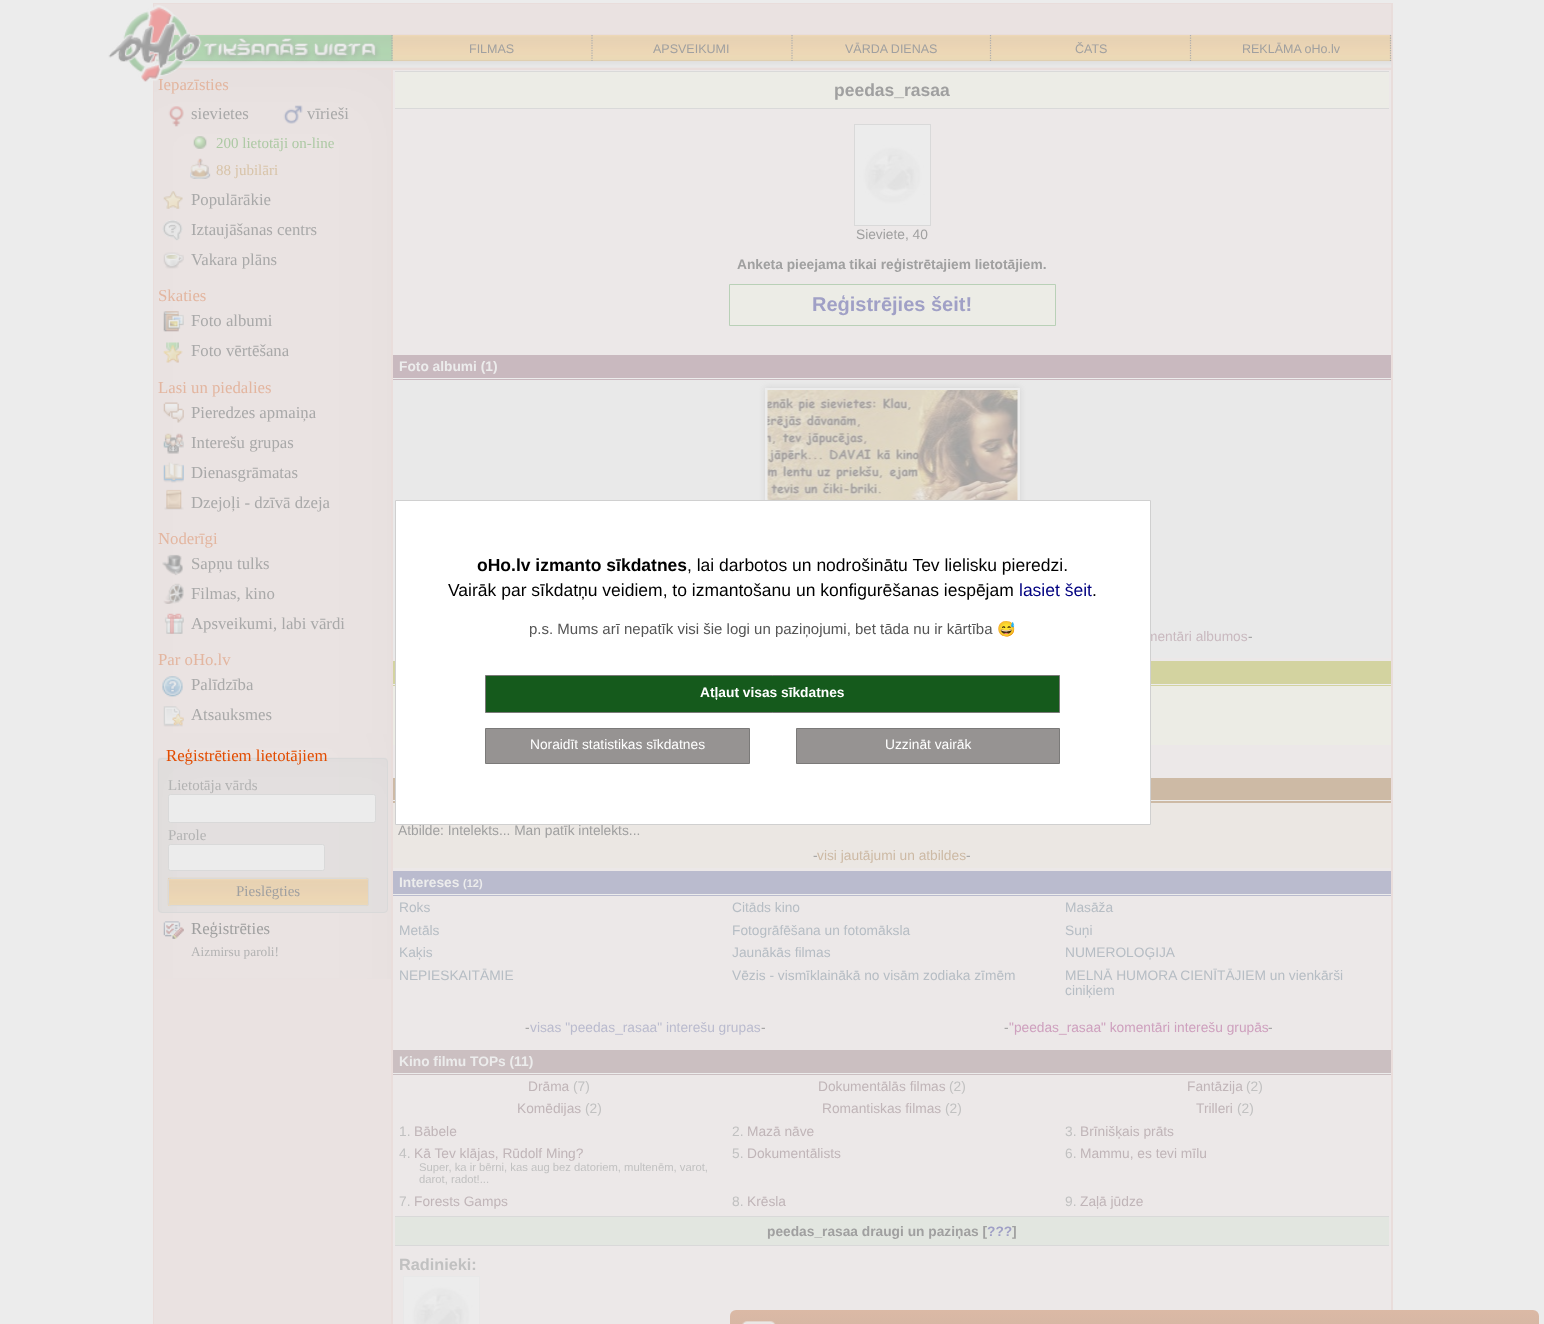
(async () => {
  const canvas = document.querySelector("canvas");
  canvas.width = 1544;
  canvas.height = 1324;
  const ctx = canvas.getContext("2d");
  ctx.miterLimit = 4;
  ctx.fontKerning = "normal";
  async function loadImage(src) {
    const img = new Image();
    img.src = src;
    await img.decode();
    return img;
  }
  let gradient, path;

  ctx.fillStyle = "#ececec";
  ctx.fillRect(0, 0, 1544, 1324);
  for (const [x, y, w, h, color] of [
    [153, 3, 1240, 1321, "#e9dddb"],
    [154, 4, 1237, 30, "#eae2e1"],
    [156, 61, 1235, 7, "#eae2e1"],
  ]) {
    ctx.fillStyle = color;
    ctx.fillRect(x, y, w, h);
  }
  ctx.drawImage(await loadImage("img/2.png"), 156, 35, 1236, 27);
  ctx.drawImage(await loadImage("img/3.png"), 156, 35, 237, 27);
  path = new Path2D("M392 35V61");
  ctx.strokeStyle = "#aeaeae";
  ctx.lineWidth = 1.2;
  ctx.setLineDash([1.25, 1.25]);
  ctx.stroke(path);
  path = new Path2D("M592 35V61");
  ctx.stroke(path);
  path = new Path2D("M792 35V61");
  ctx.stroke(path);
  path = new Path2D("M990.5 35V61");
  ctx.stroke(path);
  path = new Path2D("M1190.5 35V61");
  ctx.stroke(path);
  path = new Path2D("M1390.5 35V61");
  ctx.stroke(path);
  ctx.drawImage(await loadImage("img/4.png"), 153, 61, 1239, 7);
  ctx.fillRect(154, 70, 237, 1254);
  ctx.drawImage(await loadImage("img/5.png"), 154, 70, 237, 664);
  ctx.drawImage(await loadImage("img/6.png"), 168, 106, 16, 21);
  ctx.drawImage(await loadImage("img/7.png"), 283, 105, 20, 19);
  ctx.drawImage(await loadImage("img/8.png"), 193, 136, 14, 13);
  ctx.drawImage(await loadImage("img/9.png"), 190, 158, 21, 21);
  ctx.drawImage(await loadImage("img/10.png"), 163, 191, 20, 18);
  ctx.drawImage(await loadImage("img/11.png"), 162, 220, 21, 21);
  ctx.drawImage(await loadImage("img/12.png"), 163, 252, 21, 17);
  ctx.drawImage(await loadImage("img/13.png"), 163, 311, 21, 21);
  ctx.drawImage(await loadImage("img/14.png"), 163, 342, 20, 21);
  ctx.drawImage(await loadImage("img/15.png"), 163, 402, 21, 21);
  ctx.drawImage(await loadImage("img/16.png"), 163, 433, 21, 21);
  ctx.drawImage(await loadImage("img/17.png"), 163, 462, 21, 21);
  ctx.drawImage(await loadImage("img/18.png"), 164, 489, 20, 21);
  ctx.drawImage(await loadImage("img/19.png"), 162, 554, 21, 22);
  ctx.drawImage(await loadImage("img/20.png"), 163, 583, 21, 21);
  ctx.drawImage(await loadImage("img/21.png"), 164, 613, 20, 21);
  ctx.drawImage(await loadImage("img/22.png"), 162, 676, 21, 21);
  ctx.drawImage(await loadImage("img/23.png"), 163, 706, 21, 21);
  ctx.drawImage(await loadImage("img/24.png"), 154, 734, 237, 245);
  ctx.drawImage(await loadImage("img/25.png"), 157, 757, 231, 156);
  ctx.beginPath();
  ctx.roundRect(158.5, 758.5, 229, 154, 3.5);
  ctx.strokeStyle = "#d9d9d9";
  ctx.lineWidth = 1;
  ctx.setLineDash([]);
  ctx.stroke();
  ctx.fillStyle = "#ececec";
  ctx.beginPath();
  ctx.roundRect(168.5, 794.5, 207, 28, 2);
  ctx.fill();
  ctx.stroke();
  ctx.beginPath();
  ctx.roundRect(168.5, 844.5, 156, 26, 2);
  ctx.fill();
  ctx.stroke();
  ctx.drawImage(await loadImage("img/26.png"), 167, 877, 202, 30);
  ctx.beginPath();
  ctx.roundRect(168.5, 878.5, 200, 27, 2);
  ctx.stroke();
  ctx.drawImage(await loadImage("img/27.png"), 163, 921, 21, 18);
  for (const [x, y, w, h, color] of [
    [393, 70, 998, 1254, "#ece8e8"],
    [395, 72, 994, 36, "#ecece6"],
    [395, 71, 994, 1, "#d9d9d9"],
    [395, 108, 994, 1, "#d9d9d9"],
  ]) {
    ctx.fillStyle = color;
    ctx.fillRect(x, y, w, h);
  }
  ctx.strokeRect(854.5, 124.5, 76, 101);
  ctx.drawImage(await loadImage("img/28.png"), 855, 125, 75, 100);
  ctx.fillStyle = "#ecece6";
  ctx.beginPath();
  ctx.rect(729.5, 284.5, 326, 41);
  ctx.fill();
  ctx.strokeStyle = "#b9d0b7";
  ctx.stroke();
  for (const [x, y, w, h, color] of [
    [393, 355, 998, 25, "#c9b9bf"],
    [393, 378, 998, 1, "#ececec"],
    [393, 380, 998, 278, "#e9e9e9"],
  ]) {
    ctx.fillStyle = color;
    ctx.fillRect(x, y, w, h);
  }
  ctx.fillStyle = "rgba(160, 160, 160, 0.3)";
  ctx.filter = "blur(3px)";
  ctx.beginPath();
  ctx.rect(765, 388, 255, 205);
  ctx.fill();
  ctx.filter = "none";
  ctx.strokeStyle = "#ececec";
  ctx.lineWidth = 3;
  ctx.strokeRect(766.5, 389.5, 252, 202);
  ctx.drawImage(await loadImage("img/29.png"), 767, 390, 251, 110);
  for (const [x, y, w, h, color] of [
    [393, 661, 998, 25, "#d3d3a0"],
    [393, 684, 998, 1, "#ececec"],
    [393, 686, 998, 59, "#ecece5"],
    [393, 778, 998, 25, "#cdbaa5"],
    [393, 800, 998, 1, "#ececec"],
    [393, 803, 998, 65, "#ebe7e3"],
    [393, 871, 998, 25, "#babbce"],
    [393, 894, 998, 1, "#ececec"],
    [393, 1050, 998, 25, "#cbbfc1"],
    [393, 1073, 998, 1, "#ececec"],
    [395, 1217, 994, 28, "#e2e6e0"],
    [395, 1216, 994, 1, "#d9d9d9"],
    [395, 1245, 994, 1, "#d9d9d9"],
  ]) {
    ctx.fillStyle = color;
    ctx.fillRect(x, y, w, h);
  }
  ctx.drawImage(await loadImage("img/30.png"), 404, 1277, 75, 47);
  ctx.strokeStyle = "#e8e8e8";
  ctx.lineWidth = 1;
  ctx.strokeRect(403.5, 1276.5, 76, 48);
  gradient = ctx.createLinearGradient(1134, 1310, 1134, 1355);
  gradient.addColorStop(0, "#dbb9a5");
  gradient.addColorStop(1, "#ceb3a3");
  ctx.fillStyle = gradient;
  ctx.beginPath();
  ctx.roundRect(730, 1310, 809, 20, 6);
  ctx.fill();
  ctx.drawImage(await loadImage("img/31.png"), 742, 1321, 34, 3);
  ctx.font = "12.5px Liberation Sans";
  ctx.fillStyle = "#a0a0a0";
  for (const [text, x, y] of [
    ["FILMAS", 469, 53],
    ["APSVEIKUMI", 653, 53],
    ["VĀRDA DIENAS", 845, 53],
    ["ČATS", 1075, 53],
    ["REKLĀMA oHo.lv", 1242, 53],
  ]) {
    ctx.fillText(text, x, y);
  }
  ctx.font = "16.75px Liberation Serif";
  ctx.fillStyle = "#e3b6a0";
  ctx.fillText("Iepazīsties", 158, 90);
  ctx.drawImage(await loadImage("img/1.png"), 108, 5, 273, 77);
  ctx.fillStyle = "#a9a9a9";
  ctx.fillText("sievietes", 191, 119);
  ctx.fillText("vīrieši", 307, 119);
  ctx.font = "15px Liberation Serif";
  ctx.fillStyle = "#adc9a4";
  ctx.fillText("200 lietotāji on-line", 216, 148);
  ctx.fillStyle = "#d8c4a9";
  ctx.fillText("88 jubilāri", 216, 175);
  ctx.font = "16.75px Liberation Serif";
  ctx.fillStyle = "#a9a9a9";
  for (const [text, x, y] of [
    ["Populārākie", 191, 205],
    ["Iztaujāšanas centrs", 191, 235],
    ["Vakara plāns", 191, 265],
  ]) {
    ctx.fillText(text, x, y);
  }
  ctx.fillStyle = "#e3b6a0";
  ctx.fillText("Skaties", 158, 301);
  ctx.fillStyle = "#a9a9a9";
  ctx.fillText("Foto albumi", 191, 326);
  ctx.fillText("Foto vērtēšana", 191, 356);
  ctx.fillStyle = "#e3b6a0";
  ctx.fillText("Lasi un piedalies", 158, 393);
  ctx.fillStyle = "#a9a9a9";
  for (const [text, x, y] of [
    ["Pieredzes apmaiņa", 191, 418],
    ["Interešu grupas", 191, 448],
    ["Dienasgrāmatas", 191, 478],
    ["Dzejoļi - dzīvā dzeja", 191, 508],
  ]) {
    ctx.fillText(text, x, y);
  }
  ctx.fillStyle = "#e3b6a0";
  ctx.fillText("Noderīgi", 158, 544);
  ctx.fillStyle = "#a9a9a9";
  for (const [text, x, y] of [
    ["Sapņu tulks", 191, 569],
    ["Filmas, kino", 191, 599],
    ["Apsveikumi, labi vārdi", 191, 629],
  ]) {
    ctx.fillText(text, x, y);
  }
  ctx.fillStyle = "#e3b6a0";
  ctx.fillText("Par oHo.lv", 158, 665);
  ctx.fillStyle = "#a9a9a9";
  ctx.fillText("Palīdzība", 191, 690);
  ctx.fillText("Atsauksmes", 191, 720);
  ctx.fillStyle = "#e24c00";
  ctx.fillText("Reģistrētiem lietotājiem", 166, 761);
  ctx.font = "15px Liberation Serif";
  ctx.fillStyle = "#b3b3b3";
  ctx.fillText("Lietotāja vārds", 168, 790);
  ctx.fillText("Parole", 168, 840);
  ctx.fillStyle = "#a0a0a0";
  ctx.fillText("Pieslēgties", 236, 896);
  ctx.font = "16.75px Liberation Serif";
  ctx.fillText("Reģistrēties", 191, 934);
  ctx.font = "13.25px Liberation Serif";
  ctx.fillStyle = "#b3b3b3";
  ctx.fillText("Aizmirsu paroli!", 191, 956);
  ctx.font = "bold 17.5px Liberation Sans";
  ctx.fillStyle = "#a0a0a0";
  ctx.fillText("peedas_rasaa", 834, 96);
  ctx.font = "13.75px Liberation Sans";
  ctx.fillText("Sieviete, 40", 856, 239);
  ctx.font = "bold 13.75px Liberation Sans";
  ctx.fillText("Anketa pieejama tikai reģistrētajiem lietotājiem.", 737, 269);
  ctx.font = "bold 20px Liberation Sans";
  ctx.fillStyle = "#a0a0c6";
  ctx.fillText("Reģistrējies šeit!", 812, 311);
  ctx.font = "bold 13.75px Liberation Sans";
  ctx.fillStyle = "#ececec";
  ctx.fillText("Foto albumi (1)", 399, 371);
  ctx.font = "13.75px Liberation Sans";
  ctx.fillStyle = "#c9b9bf";
  ctx.fillText("mentāri albumos", 1146, 641);
  ctx.fillStyle = "#a0a0a0";
  for (const [text, x, y] of [
    ["-", 1248, 641],
    ["Atbilde: Intelekts... Man patīk intelekts...", 398, 835],
    ["-", 813, 860],
  ]) {
    ctx.fillText(text, x, y);
  }
  ctx.fillStyle = "#cdbaa5";
  ctx.fillText("visi jautājumi un atbildes", 817, 860);
  ctx.fillStyle = "#a0a0a0";
  ctx.fillText("-", 966, 860);
  ctx.font = "bold 13.75px Liberation Sans";
  ctx.fillStyle = "#ececec";
  ctx.fillText("Intereses", 399, 887);
  ctx.font = "bold 11px Liberation Sans";
  ctx.fillText("(12)", 463, 887);
  ctx.font = "13.75px Liberation Sans";
  ctx.fillStyle = "#b6bdc4";
  for (const [text, x, y] of [
    ["Roks", 399, 912],
    ["Citāds kino", 732, 912],
    ["Masāža", 1065, 912],
    ["Metāls", 399, 935],
    ["Fotogrāfēšana un fotomāksla", 732, 935],
    ["Suņi", 1065, 935],
    ["Kaķis", 399, 957],
    ["Jaunākās filmas", 732, 957],
    ["NUMEROLOĢIJA", 1065, 957],
    ["NEPIESKAITĀMIE", 399, 980],
    ["Vēzis - vismīklainākā no visām zodiaka zīmēm", 732, 980],
    ["MELNĀ HUMORA CIENĪTĀJIEM un vienkārši", 1065, 980],
    ["ciniķiem", 1065, 995],
  ]) {
    ctx.fillText(text, x, y);
  }
  ctx.fillStyle = "#a0a0a0";
  ctx.fillText("-", 525, 1032);
  ctx.fillStyle = "#babbce";
  ctx.fillText("visas \"peedas_rasaa\" interešu grupas", 530, 1032);
  ctx.fillStyle = "#a0a0a0";
  ctx.fillText("-", 761, 1032);
  ctx.fillText("-", 1004, 1032);
  ctx.fillStyle = "#cea0be";
  ctx.fillText("\"peedas_rasaa\" komentāri interešu grupās", 1009, 1032);
  ctx.fillStyle = "#a0a0a0";
  ctx.fillText("-", 1268, 1032);
  ctx.font = "bold 13.75px Liberation Sans";
  ctx.fillStyle = "#ececec";
  ctx.fillText("Kino filmu TOPs (11)", 399, 1066);
  ctx.font = "13.75px Liberation Sans";
  ctx.fillStyle = "#c0b5b8";
  ctx.fillText("Drāma", 528, 1091);
  ctx.fillStyle = "#c1c1c1";
  ctx.fillText("(7)", 573, 1091);
  ctx.fillStyle = "#c0b5b8";
  ctx.fillText("Dokumentālās filmas", 818, 1091);
  ctx.fillStyle = "#c1c1c1";
  ctx.fillText("(2)", 949, 1091);
  ctx.fillStyle = "#c0b5b8";
  ctx.fillText("Fantāzija", 1187, 1091);
  ctx.fillStyle = "#c1c1c1";
  ctx.fillText("(2)", 1246, 1091);
  ctx.fillStyle = "#c0b5b8";
  ctx.fillText("Komēdijas", 517, 1113);
  ctx.fillStyle = "#c1c1c1";
  ctx.fillText("(2)", 585, 1113);
  ctx.fillStyle = "#c0b5b8";
  ctx.fillText("Romantiskas filmas", 822, 1113);
  ctx.fillStyle = "#c1c1c1";
  ctx.fillText("(2)", 945, 1113);
  ctx.fillStyle = "#c0b5b8";
  ctx.fillText("Trilleri", 1196, 1113);
  ctx.fillStyle = "#c1c1c1";
  ctx.fillText("(2)", 1237, 1113);
  ctx.fillText("1.", 399, 1136);
  ctx.fillStyle = "#c0b5b8";
  ctx.fillText("Bābele", 414, 1136);
  ctx.fillStyle = "#c1c1c1";
  ctx.fillText("2.", 732, 1136);
  ctx.fillStyle = "#c0b5b8";
  ctx.fillText("Mazā nāve", 747, 1136);
  ctx.fillStyle = "#c1c1c1";
  ctx.fillText("3.", 1065, 1136);
  ctx.fillStyle = "#c0b5b8";
  ctx.fillText("Brīnišķais prāts", 1080, 1136);
  ctx.fillStyle = "#c1c1c1";
  ctx.fillText("4.", 399, 1158);
  ctx.fillStyle = "#c0b5b8";
  ctx.fillText("Kā Tev klājas, Rūdolf Ming?", 414, 1158);
  ctx.font = "11.25px Liberation Sans";
  ctx.fillStyle = "#c1c1c1";
  ctx.fillText("Super, ka ir bērni, kas aug bez datoriem, multenēm, varot,", 419, 1171);
  ctx.fillText("darot, radot!...", 419, 1183);
  ctx.font = "13.75px Liberation Sans";
  ctx.fillText("5.", 732, 1158);
  ctx.fillStyle = "#c0b5b8";
  ctx.fillText("Dokumentālists", 747, 1158);
  ctx.fillStyle = "#c1c1c1";
  ctx.fillText("6.", 1065, 1158);
  ctx.fillStyle = "#c0b5b8";
  ctx.fillText("Mammu, es tevi mīlu", 1080, 1158);
  ctx.fillStyle = "#c1c1c1";
  ctx.fillText("7.", 399, 1206);
  ctx.fillStyle = "#c0b5b8";
  ctx.fillText("Forests Gamps", 414, 1206);
  ctx.fillStyle = "#c1c1c1";
  ctx.fillText("8.", 732, 1206);
  ctx.fillStyle = "#c0b5b8";
  ctx.fillText("Krēsla", 747, 1206);
  ctx.fillStyle = "#c1c1c1";
  ctx.fillText("9.", 1065, 1206);
  ctx.fillStyle = "#c0b5b8";
  ctx.fillText("Zaļā jūdze", 1080, 1206);
  ctx.font = "bold 13.75px Liberation Sans";
  ctx.fillStyle = "#a0a0a0";
  ctx.fillText("peedas_rasaa draugi un paziņas [", 767, 1236);
  ctx.fillStyle = "#a0a0c6";
  ctx.fillText("???", 987, 1236);
  ctx.fillStyle = "#a0a0a0";
  ctx.fillText("]", 1012, 1236);
  ctx.font = "bold 16.25px Liberation Sans";
  ctx.fillStyle = "#c1c1c1";
  ctx.fillText("Radinieki:", 399, 1270);
  ctx.fillStyle = "#ffffff";
  ctx.beginPath();
  ctx.rect(395.5, 500.5, 755, 324);
  ctx.fill();
  ctx.strokeStyle = "#d0d0d0";
  ctx.stroke();
  ctx.font = "bold 17.5px Liberation Sans";
  ctx.fillStyle = "#000000";
  ctx.fillText("oHo.lv izmanto sīkdatnes", 477, 571);
  ctx.font = "17.5px Liberation Sans";
  ctx.fillText(", lai darbotos un nodrošinātu Tev lielisku pieredzi.", 687, 571);
  ctx.fillText("Vairāk par sīkdatņu veidiem, to izmantošanu un konfigurēšanas iespējam", 448, 596);
  ctx.fillStyle = "#000080";
  ctx.fillText("lasiet šeit", 1019, 596);
  ctx.fillStyle = "#000000";
  ctx.fillText(".", 1092, 596);
  ctx.font = "15px Liberation Sans";
  ctx.fillStyle = "#555555";
  ctx.fillText("p.s. Mums arī nepatīk visi šie logi un paziņojumi, bet tāda nu ir kārtība", 529, 634);
  ctx.font = "15px Noto Color Emoji";
  ctx.fillText("😅", 997, 634);
  ctx.fillStyle = "#155a1c";
  ctx.beginPath();
  ctx.rect(485.5, 675.5, 574, 37);
  ctx.fill();
  ctx.strokeStyle = "#7b7a79";
  ctx.stroke();
  ctx.font = "bold 13.75px Liberation Sans";
  ctx.fillStyle = "#ffffff";
  ctx.fillText("Atļaut visas sīkdatnes", 700, 697);
  ctx.fillStyle = "#969392";
  ctx.beginPath();
  ctx.rect(485.5, 728.5, 264, 35);
  ctx.fill();
  ctx.stroke();
  ctx.font = "13.75px Liberation Sans";
  ctx.fillStyle = "#ffffff";
  ctx.fillText("Noraidīt statistikas sīkdatnes", 530, 749);
  ctx.fillStyle = "#969392";
  ctx.beginPath();
  ctx.rect(796.5, 728.5, 263, 35);
  ctx.fill();
  ctx.stroke();
  ctx.fillStyle = "#ffffff";
  ctx.fillText("Uzzināt vairāk", 885, 749);
})();
